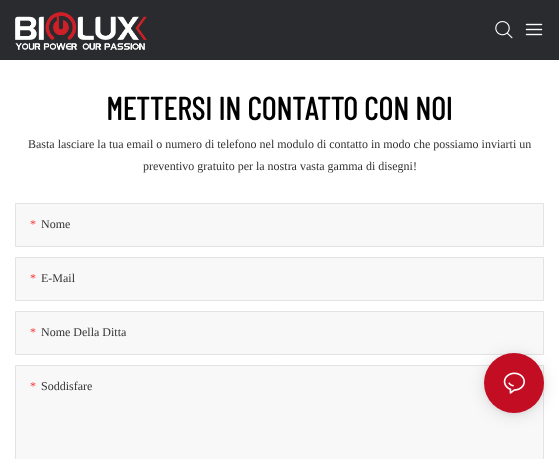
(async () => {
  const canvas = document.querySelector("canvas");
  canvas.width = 559;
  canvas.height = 459;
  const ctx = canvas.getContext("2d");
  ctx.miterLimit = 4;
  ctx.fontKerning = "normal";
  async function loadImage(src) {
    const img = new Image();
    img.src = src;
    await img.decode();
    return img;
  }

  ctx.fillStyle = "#ffffff";
  ctx.fillRect(0, 0, 559, 459);
  ctx.fillStyle = "#292b2e";
  ctx.fillRect(0, 0, 559, 60);
  ctx.drawImage(await loadImage("img/1.png"), 15, 12, 132, 38);
  ctx.drawImage(await loadImage("img/2.png"), 495, 21, 18, 18);
  ctx.drawImage(await loadImage("img/3.png"), 525, 23, 18, 13);
  ctx.fillStyle = "#f8f8f8";
  ctx.beginPath();
  ctx.rect(15.5, 203.5, 528, 43);
  ctx.fill();
  ctx.strokeStyle = "#e3e3e3";
  ctx.stroke();
  ctx.beginPath();
  ctx.rect(15.5, 257.5, 528, 43);
  ctx.fill();
  ctx.stroke();
  ctx.beginPath();
  ctx.rect(15.5, 311.5, 528, 43);
  ctx.fill();
  ctx.stroke();
  ctx.beginPath();
  ctx.rect(15.5, 365.5, 528, 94);
  ctx.fill();
  ctx.stroke();
  ctx.fillStyle = "rgba(0, 0, 0, 0.12)";
  ctx.filter = "blur(8px)";
  ctx.beginPath();
  ctx.roundRect(484, 355, 60, 60, 30);
  ctx.fill();
  ctx.filter = "none";
  ctx.fillStyle = "rgba(0, 0, 0, 0.06)";
  ctx.filter = "blur(2px)";
  ctx.beginPath();
  ctx.roundRect(484, 354, 60, 60, 30);
  ctx.fill();
  ctx.filter = "none";
  ctx.fillStyle = "#c30d23";
  ctx.beginPath();
  ctx.arc(514, 383, 30, 0, Math.PI * 2);
  ctx.fill();
  ctx.drawImage(await loadImage("img/4.png"), 503, 372, 22, 22);
  ctx.font = "bold 32px Barlow Condensed";
  ctx.fillStyle = "#000000";
  ctx.fillText("METTERSI IN CONTATTO CON NOI", 106, 120);
  ctx.font = "12px Liberation Serif";
  ctx.fillStyle = "#333333";
  ctx.fillText("Basta lasciare la tua email o numero di telefono nel modulo di contatto in modo che possiamo inviarti un", 28, 148);
  ctx.fillText("preventivo gratuito per la nostra vasta gamma di disegni!", 143, 170);
  ctx.fillStyle = "#fe3232";
  ctx.fillText("*", 30, 228);
  ctx.fillStyle = "#333333";
  ctx.fillText("Nome", 41, 228);
  ctx.fillStyle = "#fe3232";
  ctx.fillText("*", 30, 282);
  ctx.fillStyle = "#333333";
  ctx.fillText("E-Mail", 41, 282);
  ctx.fillStyle = "#fe3232";
  ctx.fillText("*", 30, 336);
  ctx.fillStyle = "#333333";
  ctx.fillText("Nome Della Ditta", 41, 336);
  ctx.fillStyle = "#fe3232";
  ctx.fillText("*", 30, 390);
  ctx.fillStyle = "#333333";
  ctx.fillText("Soddisfare", 41, 390);
})();
